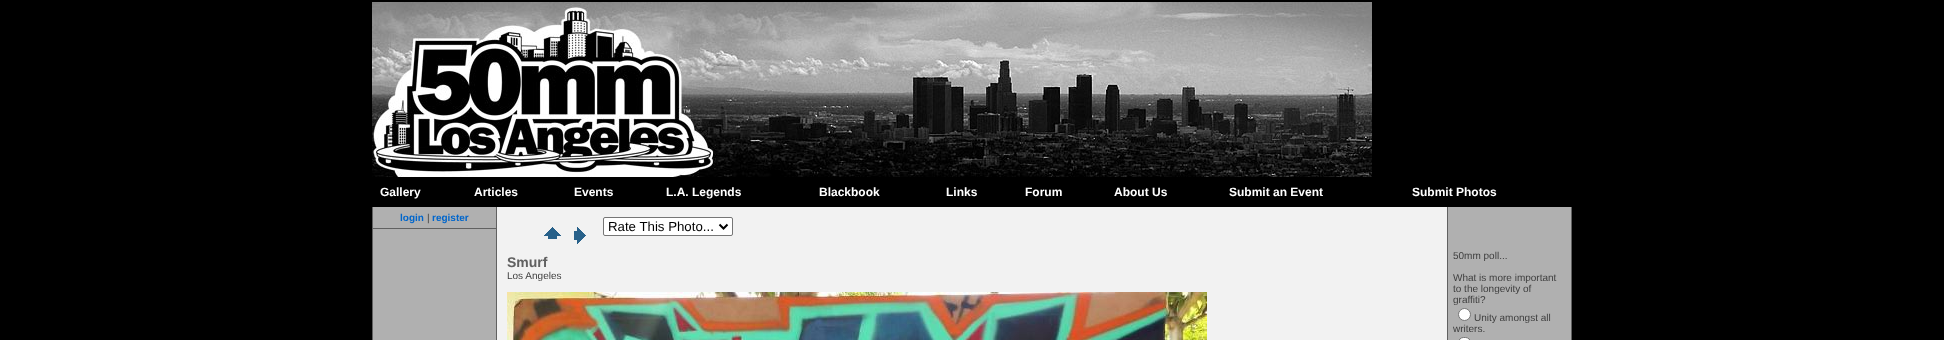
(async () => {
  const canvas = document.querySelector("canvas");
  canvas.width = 1944;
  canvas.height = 340;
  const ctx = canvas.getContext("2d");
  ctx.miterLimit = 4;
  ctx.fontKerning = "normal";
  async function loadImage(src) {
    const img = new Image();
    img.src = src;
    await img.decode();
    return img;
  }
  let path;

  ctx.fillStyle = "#000000";
  ctx.fillRect(0, 0, 1944, 340);
  ctx.drawImage(await loadImage("img/1.png"), 372, 2, 1000, 175);
  for (const [x, y, w, h, color] of [
    [372, 207, 1, 133, "#616161"],
    [373, 207, 123, 133, "#b0b0b0"],
    [373, 228, 123, 1, "#616161"],
    [496, 207, 1, 133, "#616161"],
    [1447, 207, 1, 133, "#616161"],
    [1571, 207, 1, 133, "#616161"],
    [497, 207, 950, 133, "#f2f2f2"],
  ]) {
    ctx.fillStyle = color;
    ctx.fillRect(x, y, w, h);
  }
  ctx.drawImage(await loadImage("img/2.png"), 544, 227, 17, 12);
  ctx.drawImage(await loadImage("img/3.png"), 574, 227, 12, 17);
  ctx.fillStyle = "#ffffff";
  ctx.beginPath();
  ctx.roundRect(603.5, 217.5, 129, 18, 1.5);
  ctx.fill();
  ctx.strokeStyle = "#767676";
  ctx.stroke();
  path = new Path2D("M719.5 224.5L723.5 228.5L727.5 224.5");
  ctx.strokeStyle = "#000000";
  ctx.lineWidth = 2;
  ctx.stroke(path);
  ctx.drawImage(await loadImage("img/4.png"), 507, 292, 700, 48);
  ctx.fillStyle = "#b0b0b0";
  ctx.fillRect(1448, 207, 123, 133);
  ctx.fillStyle = "#ffffff";
  ctx.beginPath();
  ctx.arc(1464.5, 314.5, 6, 0, Math.PI * 2);
  ctx.fill();
  ctx.strokeStyle = "#767676";
  ctx.lineWidth = 1;
  ctx.stroke();
  ctx.beginPath();
  ctx.roundRect(1458.5, 337.5, 12, 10, 6);
  ctx.fill();
  ctx.stroke();
  ctx.font = "bold 12px Liberation Sans";
  for (const [text, x, y] of [
    ["Gallery", 380, 196],
    ["Articles", 474, 196],
    ["Events", 574, 196],
    ["L.A. Legends", 666, 196],
    ["Blackbook", 819, 196],
    ["Links", 946, 196],
    ["Forum", 1025, 196],
    ["About Us", 1114, 196],
    ["Submit an Event", 1229, 196],
    ["Submit Photos", 1412, 196],
  ]) {
    ctx.fillText(text, x, y);
  }
  ctx.font = "bold 10px Liberation Sans";
  ctx.fillStyle = "#0066cc";
  ctx.fillText("login", 400, 221);
  ctx.font = "10px Liberation Sans";
  ctx.fillStyle = "#3e3e3e";
  ctx.fillText("|", 427, 221);
  ctx.font = "bold 10px Liberation Sans";
  ctx.fillStyle = "#0066cc";
  ctx.fillText("register", 432, 221);
  ctx.font = "13.25px Liberation Sans";
  ctx.fillStyle = "#000000";
  ctx.fillText("Rate This Photo...", 608, 231);
  ctx.font = "bold 14px Liberation Sans";
  ctx.fillStyle = "#616161";
  ctx.fillText("Smurf", 507, 267);
  ctx.font = "10px Liberation Sans";
  ctx.fillStyle = "#3e3e3e";
  for (const [text, x, y] of [
    ["Los Angeles", 507, 279],
    ["50mm poll...", 1453, 259],
    ["What is more important", 1453, 281],
    ["to the longevity of", 1453, 292],
    ["graffiti?", 1453, 303],
    ["Unity amongst all", 1474, 321],
    ["writers.", 1453, 332],
  ]) {
    ctx.fillText(text, x, y);
  }
})();
